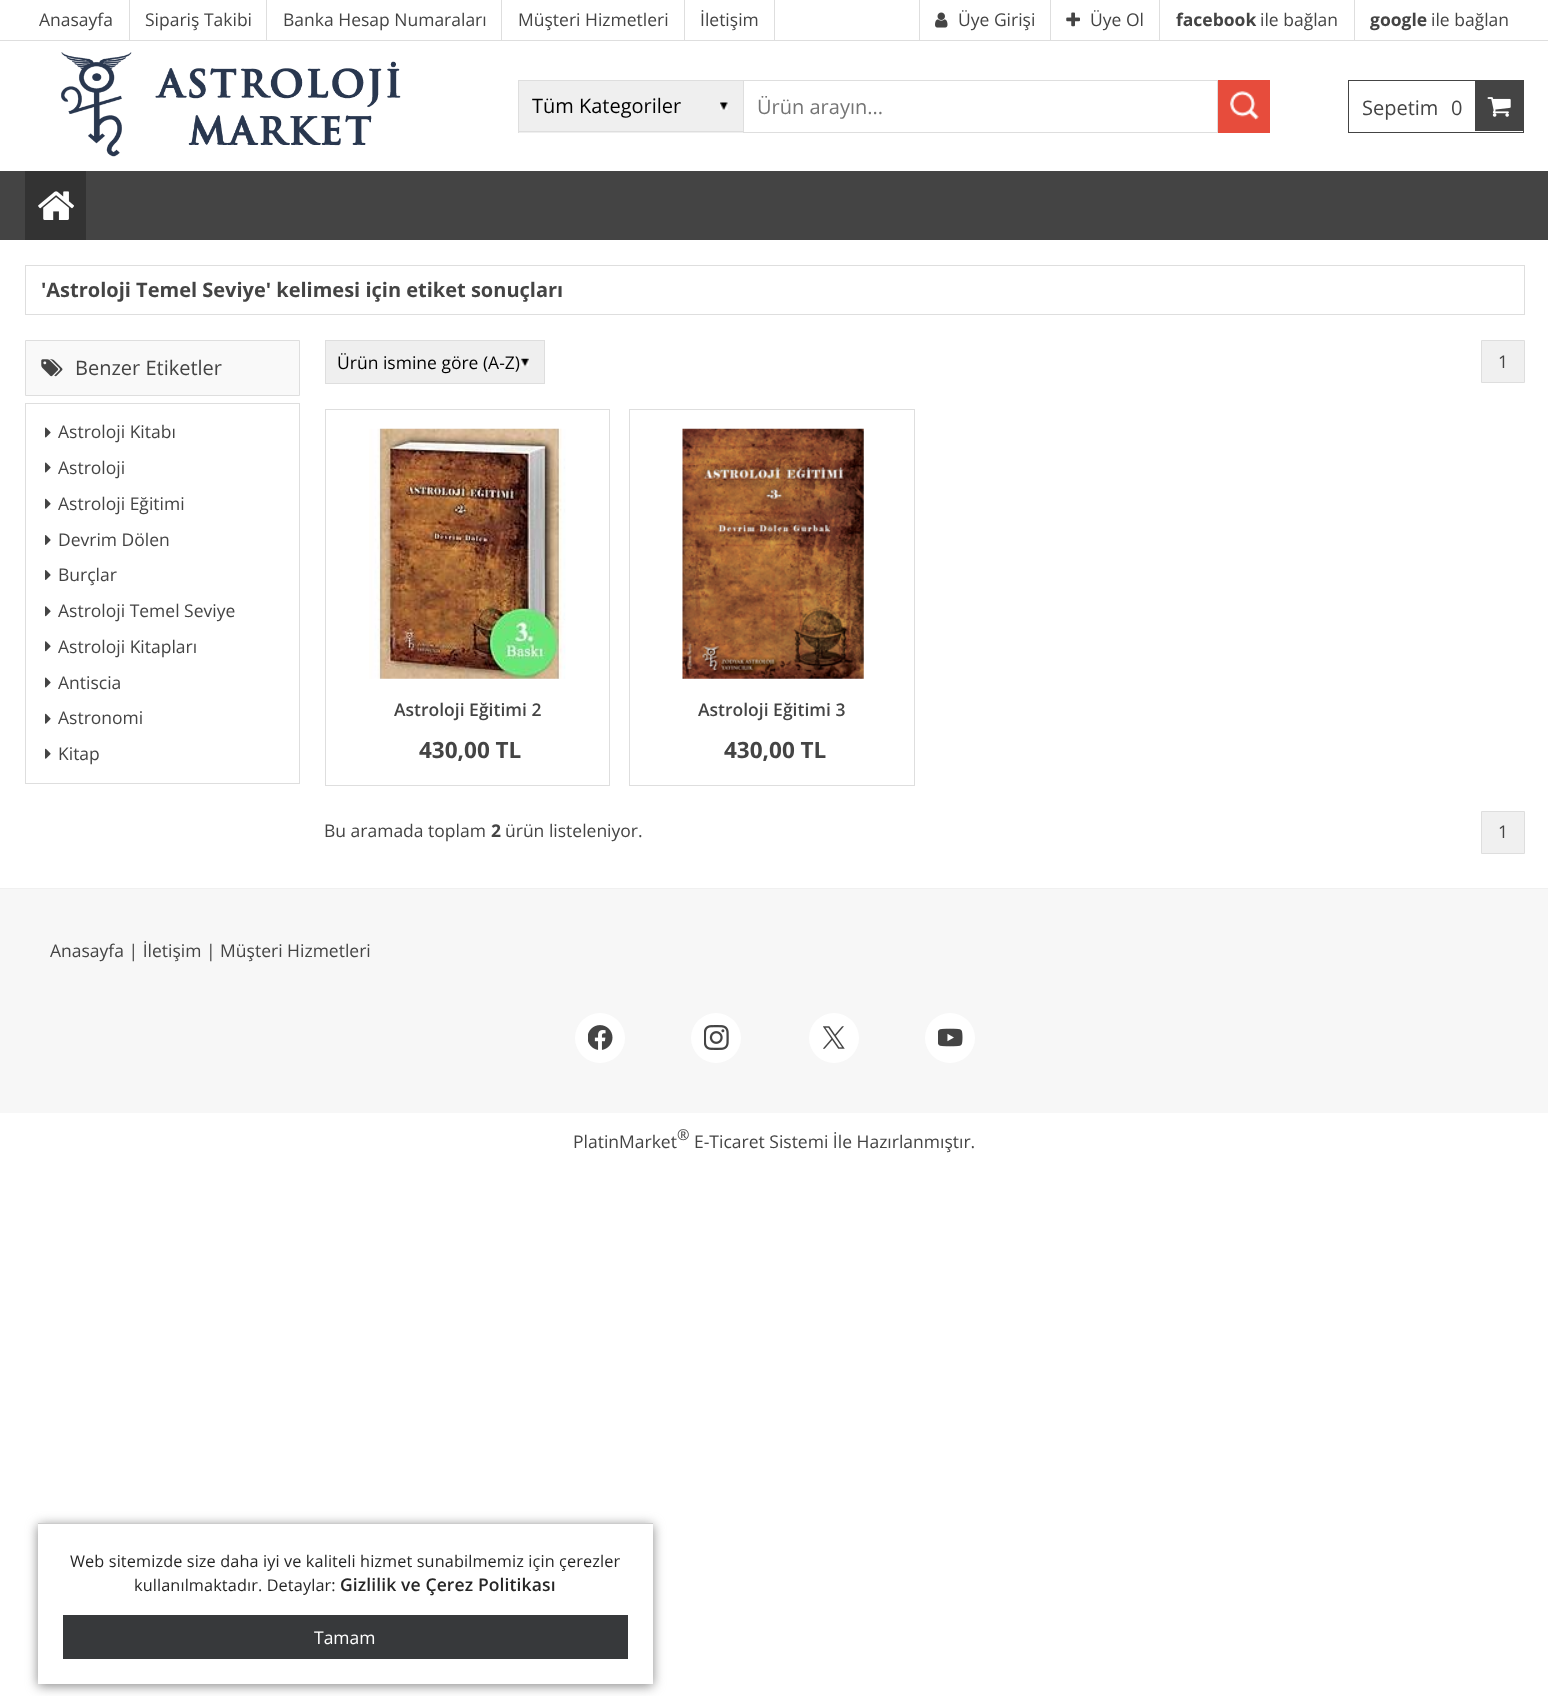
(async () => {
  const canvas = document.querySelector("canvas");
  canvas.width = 1548;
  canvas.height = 1696;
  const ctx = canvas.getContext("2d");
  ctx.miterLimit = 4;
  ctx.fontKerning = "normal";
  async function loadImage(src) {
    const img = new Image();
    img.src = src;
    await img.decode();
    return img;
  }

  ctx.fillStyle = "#ffffff";
  ctx.fillRect(0, 0, 1548, 1696);
  for (const [x, y, w, h, color] of [
    [0, 40, 1548, 1, "#dedede"],
    [129, 0, 1, 40, "#dedede"],
    [266, 0, 1, 40, "#dedede"],
    [501, 0, 1, 40, "#dedede"],
    [684, 0, 1, 40, "#dedede"],
    [774, 0, 1, 40, "#dedede"],
    [919, 0, 1, 40, "#dedede"],
  ]) {
    ctx.fillStyle = color;
    ctx.fillRect(x, y, w, h);
  }
  ctx.drawImage(await loadImage("img/1.png"), 935, 12, 13, 16);
  ctx.fillRect(1050, 0, 1, 40);
  ctx.drawImage(await loadImage("img/2.png"), 1066, 12, 14, 15);
  ctx.fillRect(1159, 0, 1, 40);
  ctx.fillRect(1354, 0, 1, 40);
  ctx.drawImage(await loadImage("img/3.png"), 61, 52, 340, 105);
  ctx.fillStyle = "#efefef";
  ctx.fillRect(519, 81, 224, 52);
  ctx.drawImage(await loadImage("img/4.png"), 720, 102, 8, 8);
  for (const [x, y, w, h, color] of [
    [518, 80, 225, 1, "#dedede"],
    [518, 131, 225, 1, "#dedede"],
    [518, 80, 1, 53, "#dedede"],
  ]) {
    ctx.fillStyle = color;
    ctx.fillRect(x, y, w, h);
  }
  ctx.strokeStyle = "#dedede";
  ctx.strokeRect(743.5, 80.5, 474, 52);
  ctx.fillStyle = "#e74c3c";
  ctx.fillRect(1218, 80, 52, 53);
  ctx.drawImage(await loadImage("img/5.png"), 1230, 91, 29, 29);
  ctx.strokeStyle = "#444444";
  ctx.strokeRect(1348.5, 80.5, 175, 52);
  ctx.fillStyle = "#444444";
  ctx.fillRect(1475, 81, 48, 50);
  ctx.drawImage(await loadImage("img/6.png"), 1487, 97, 24, 20);
  ctx.fillRect(0, 171, 1548, 69);
  ctx.fillStyle = "#333333";
  ctx.fillRect(25, 171, 61, 69);
  ctx.drawImage(await loadImage("img/7.png"), 38, 191, 36, 29);
  ctx.fillStyle = "#888888";
  ctx.filter = "blur(6px)";
  ctx.beginPath();
  ctx.rect(38, 1525, 615, 161);
  ctx.fill();
  ctx.filter = "none";
  for (const [x, y, w, h, color] of [
    [38, 1524, 615, 160, "#ffffff"],
    [38, 1523, 615, 1, "#cccccc"],
    [63, 1615, 565, 44, "#37393b"],
  ]) {
    ctx.fillStyle = color;
    ctx.fillRect(x, y, w, h);
  }
  ctx.strokeStyle = "#dedede";
  ctx.strokeRect(25.5, 265.5, 1499, 49);
  ctx.fillStyle = "#f9f9f9";
  ctx.beginPath();
  ctx.rect(25.5, 340.5, 274, 55);
  ctx.fill();
  ctx.stroke();
  ctx.drawImage(await loadImage("img/8.png"), 41, 359, 22, 18);
  ctx.strokeRect(25.5, 403.5, 274, 380);
  ctx.drawImage(await loadImage("img/9.png"), 45, 427, 6, 11);
  ctx.drawImage(await loadImage("img/9.png"), 45, 462, 6, 11);
  ctx.drawImage(await loadImage("img/10.png"), 45, 498, 6, 11);
  ctx.drawImage(await loadImage("img/11.png"), 45, 535, 6, 10);
  ctx.drawImage(await loadImage("img/11.png"), 45, 570, 6, 10);
  ctx.drawImage(await loadImage("img/12.png"), 45, 606, 6, 11);
  ctx.drawImage(await loadImage("img/12.png"), 45, 641, 6, 11);
  ctx.drawImage(await loadImage("img/9.png"), 45, 677, 6, 11);
  ctx.drawImage(await loadImage("img/10.png"), 45, 713, 6, 11);
  ctx.drawImage(await loadImage("img/10.png"), 45, 748, 6, 11);
  ctx.fillStyle = "#efefef";
  ctx.fillRect(326, 341, 218, 42);
  ctx.drawImage(await loadImage("img/13.png"), 521, 358, 8, 9);
  ctx.strokeRect(325.5, 340.5, 219, 43);
  ctx.fillStyle = "#f0f0f0";
  ctx.beginPath();
  ctx.rect(1481.5, 340.5, 43, 42);
  ctx.fill();
  ctx.stroke();
  ctx.strokeRect(325.5, 409.5, 284, 376);
  ctx.drawImage(await loadImage("img/14.png"), 369, 428, 197, 251);
  ctx.strokeRect(629.5, 409.5, 285, 376);
  ctx.drawImage(await loadImage("img/15.png"), 682, 428, 182, 251);
  ctx.beginPath();
  ctx.rect(1481.5, 811.5, 43, 42);
  ctx.fill();
  ctx.stroke();
  ctx.fillStyle = "#f7f7f7";
  ctx.fillRect(0, 889, 1548, 224);
  ctx.fillStyle = "#f0f0f0";
  ctx.fillRect(0, 888, 1548, 1);
  ctx.fillStyle = "#ffffff";
  ctx.beginPath();
  ctx.arc(600, 1038, 25, 0, Math.PI * 2);
  ctx.fill();
  ctx.drawImage(await loadImage("img/16.png"), 588, 1025, 25, 25);
  ctx.beginPath();
  ctx.arc(716, 1038, 25, 0, Math.PI * 2);
  ctx.fill();
  ctx.drawImage(await loadImage("img/17.png"), 704, 1025, 25, 25);
  ctx.beginPath();
  ctx.arc(834, 1038, 25, 0, Math.PI * 2);
  ctx.fill();
  ctx.drawImage(await loadImage("img/18.png"), 823, 1026, 22, 23);
  ctx.beginPath();
  ctx.arc(950, 1038, 25, 0, Math.PI * 2);
  ctx.fill();
  ctx.drawImage(await loadImage("img/19.png"), 938, 1028, 25, 19);
  ctx.font = "17.5px Open Sans";
  ctx.fillStyle = "#444444";
  for (const [text, x, y] of [
    ["Anasayfa", 39, 26],
    ["Sipariş Takibi", 145, 26],
    ["Banka Hesap Numaraları", 283, 26],
    ["Müşteri Hizmetleri", 518, 26],
    ["İletişim", 700, 26],
    ["Üye Girişi", 958, 26],
    ["Üye Ol", 1090, 26],
  ]) {
    ctx.fillText(text, x, y);
  }
  ctx.font = "bold 17.5px Open Sans";
  ctx.fillText("facebook", 1176, 26);
  ctx.font = "17.5px Open Sans";
  ctx.fillText("ile bağlan", 1260, 26);
  ctx.font = "bold 17.5px Open Sans";
  ctx.fillText("google", 1370, 26);
  ctx.font = "17.5px Open Sans";
  ctx.fillText("ile bağlan", 1431, 26);
  ctx.font = "20px Open Sans";
  ctx.fillStyle = "#000000";
  ctx.fillText("Tüm Kategoriler", 532, 113);
  ctx.fillStyle = "#757575";
  ctx.fillText("Ürün arayın...", 757, 114);
  ctx.fillStyle = "#444444";
  ctx.fillText("Sepetim", 1362, 115);
  ctx.fillText("0", 1451, 115);
  ctx.letterSpacing = "0.12px";
  ctx.font = "16.25px Open Sans";
  ctx.fillStyle = "#262626";
  ctx.fillText("Web sitemizde size daha iyi ve kaliteli hizmet sunabilmemiz için çerezler", 70, 1567);
  ctx.fillText("kullanılmaktadır. Detaylar:", 134, 1591);
  ctx.font = "600 17.5px Open Sans";
  ctx.fillText("Gizlilik ve Çerez Politikası", 340, 1591);
  ctx.letterSpacing = "0px";
  ctx.font = "17.5px Open Sans";
  ctx.fillStyle = "#ffffff";
  ctx.fillText("Tamam", 314, 1644);
  ctx.font = "bold 20px Open Sans";
  ctx.fillStyle = "#444444";
  ctx.fillText("'Astroloji Temel Seviye' kelimesi için etiket sonuçları", 41, 297);
  ctx.font = "20px Open Sans";
  ctx.fillText("Benzer Etiketler", 75, 375);
  ctx.font = "17.5px Open Sans";
  for (const [text, x, y] of [
    ["Astroloji Kitabı", 58, 438],
    ["Astroloji", 58, 474],
    ["Astroloji Eğitimi", 58, 510],
    ["Devrim Dölen", 58, 546],
    ["Burçlar", 58, 581],
    ["Astroloji Temel Seviye", 58, 617],
    ["Astroloji Kitapları", 58, 653],
    ["Antiscia", 58, 689],
    ["Astronomi", 58, 724],
    ["Kitap", 58, 760],
  ]) {
    ctx.fillText(text, x, y);
  }
  ctx.fillStyle = "#000000";
  ctx.fillText("Ürün ismine göre (A-Z)", 337, 369);
  ctx.fillStyle = "#444444";
  ctx.fillText("1", 1498, 368);
  ctx.font = "600 17.5px Open Sans";
  ctx.fillText("Astroloji Eğitimi 2", 394, 716);
  ctx.font = "bold 22.5px Open Sans";
  ctx.fillText("430,00 TL", 419, 758);
  ctx.font = "600 17.5px Open Sans";
  ctx.fillText("Astroloji Eğitimi 3", 698, 716);
  ctx.font = "bold 22.5px Open Sans";
  ctx.fillText("430,00 TL", 724, 758);
  ctx.font = "17.5px Open Sans";
  ctx.fillText("Bu aramada toplam", 324, 837);
  ctx.font = "bold 17.5px Open Sans";
  ctx.fillText("2", 491, 837);
  ctx.font = "17.5px Open Sans";
  for (const [text, x, y] of [
    ["ürün listeleniyor.", 505, 837],
    ["1", 1498, 838],
    ["Anasayfa | İletişim | Müşteri Hizmetleri", 50, 957],
    ["PlatinMarket", 573, 1148],
  ]) {
    ctx.fillText(text, x, y);
  }
  ctx.font = "15px Open Sans";
  ctx.fillText("®", 677, 1140);
  ctx.font = "17.5px Open Sans";
  ctx.fillText("E-Ticaret Sistemi İle Hazırlanmıştır.", 694, 1148);
})();
